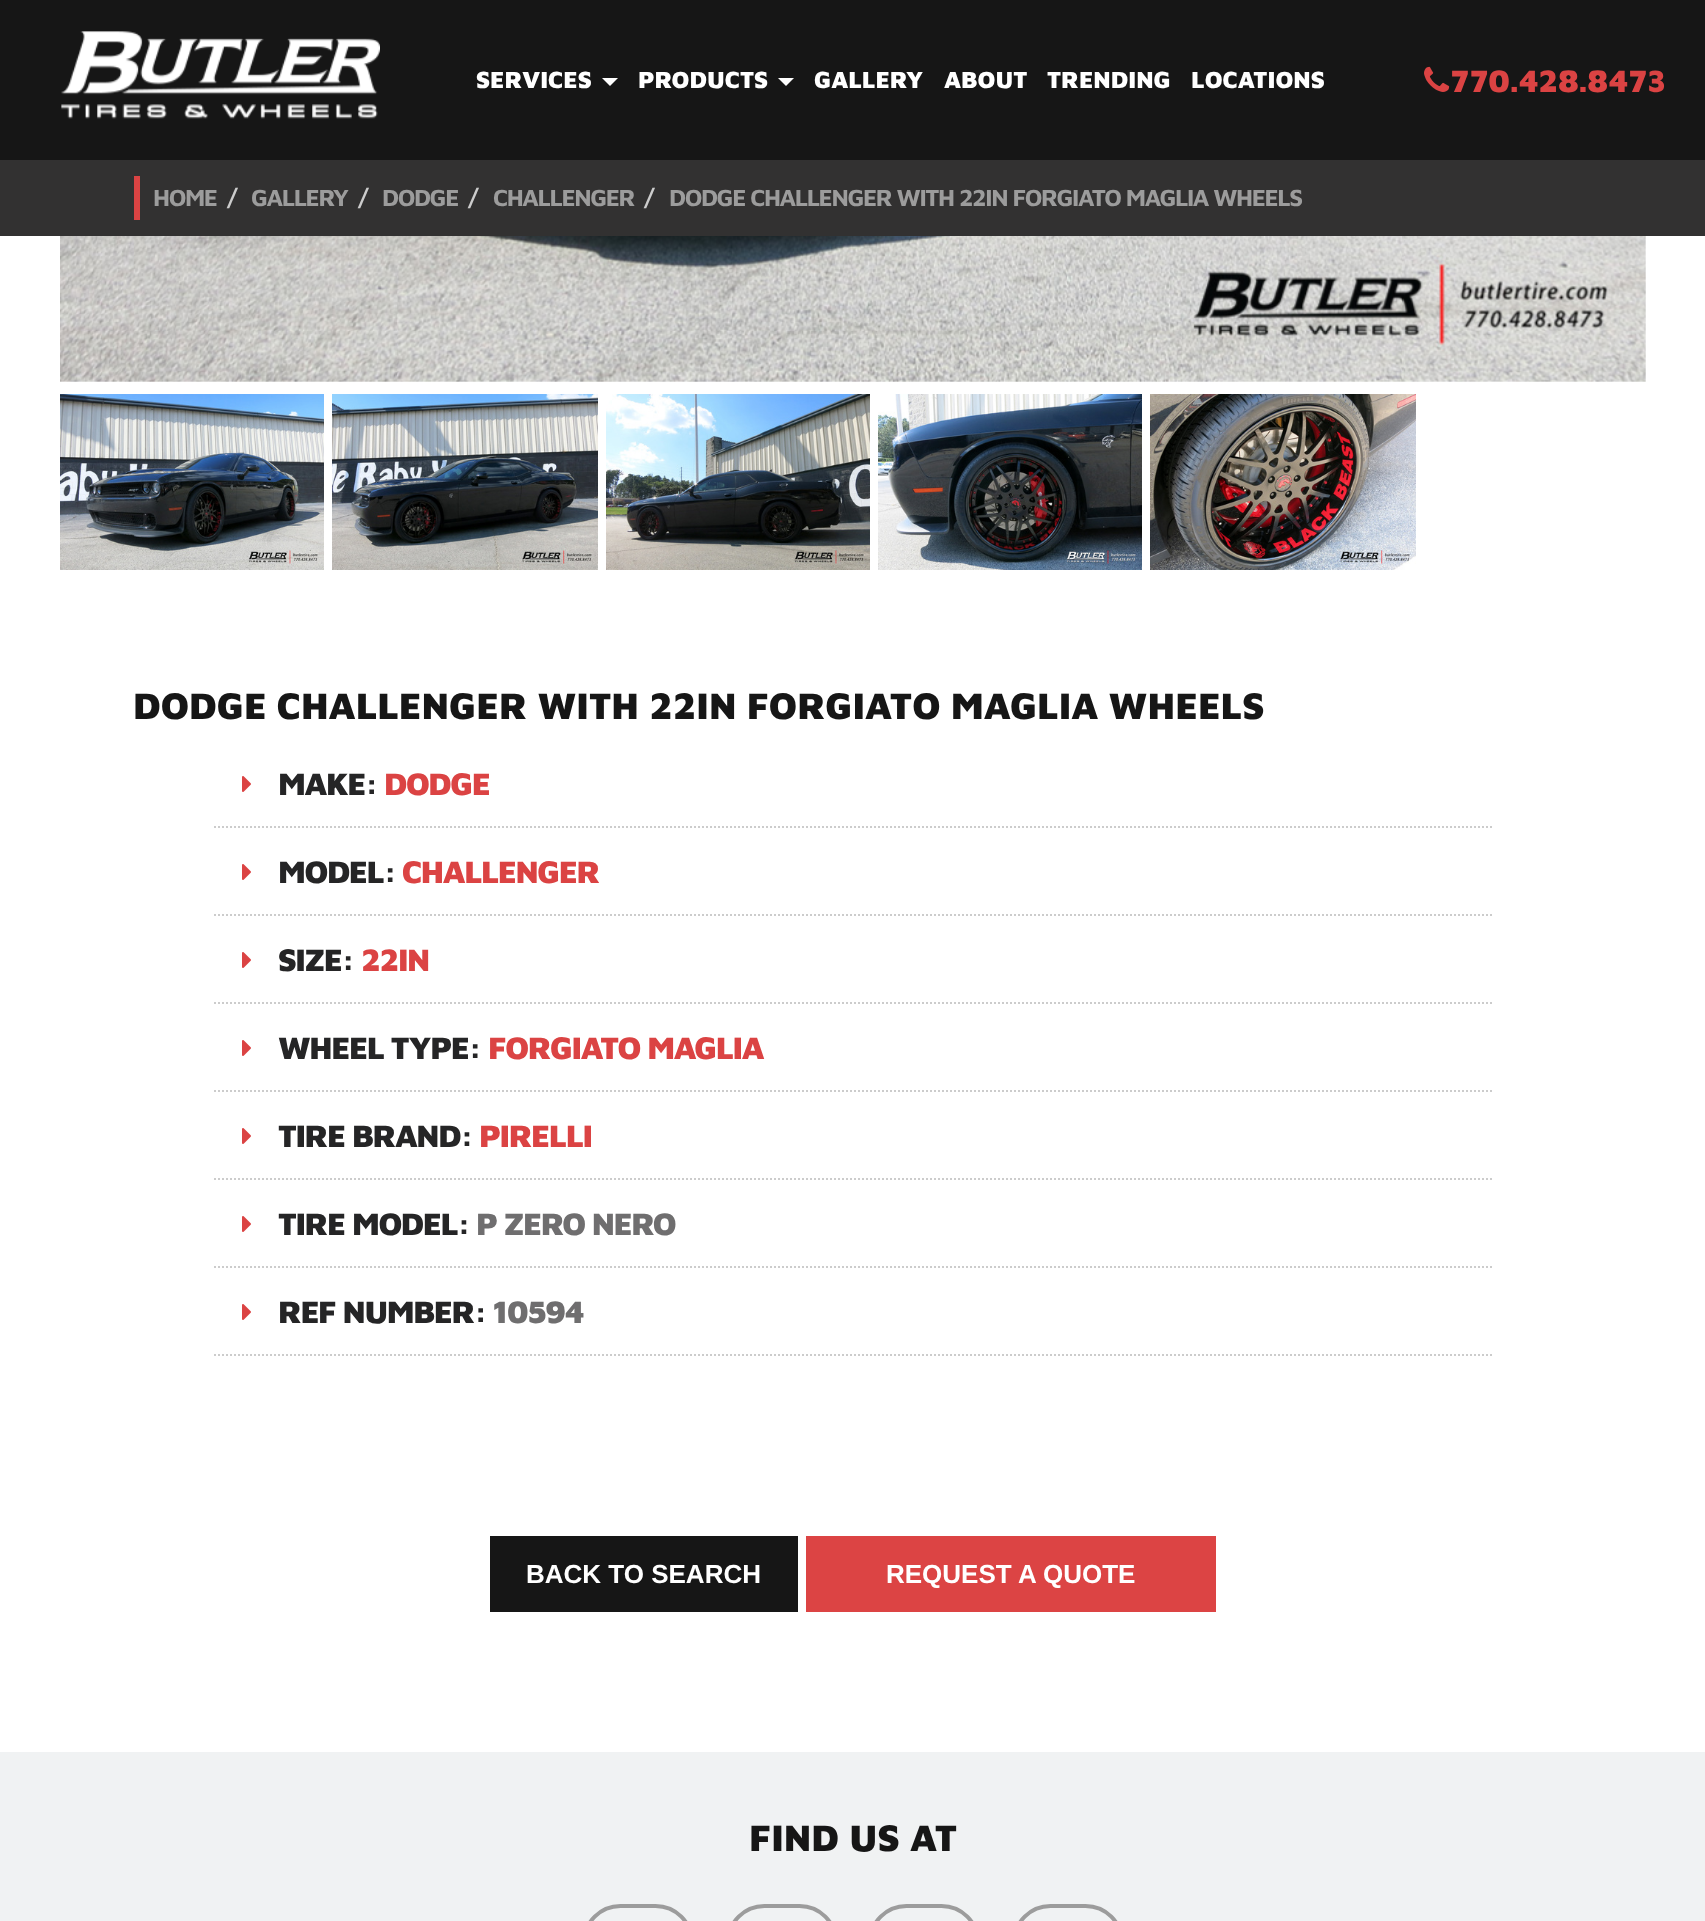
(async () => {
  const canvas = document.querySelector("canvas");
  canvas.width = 1705;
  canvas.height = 1921;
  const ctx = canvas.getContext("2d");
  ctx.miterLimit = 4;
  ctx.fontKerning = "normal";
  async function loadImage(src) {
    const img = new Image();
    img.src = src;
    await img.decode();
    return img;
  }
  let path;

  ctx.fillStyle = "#ffffff";
  ctx.fillRect(0, 0, 1705, 1921);
  ctx.fillStyle = "#161616";
  ctx.fillRect(0, 0, 1705, 160);
  ctx.drawImage(await loadImage("img/1.png"), 61, 31, 319, 88);
  ctx.fillStyle = "#ffffff";
  path = new Path2D("M602 78H618L610 86Z");
  ctx.fill(path);
  path = new Path2D("M778 78H794L786 86Z");
  ctx.fill(path);
  ctx.drawImage(await loadImage("img/2.png"), 1424, 66, 26, 26);
  ctx.fillStyle = "#323131";
  ctx.fillRect(0, 160, 1705, 76);
  ctx.fillStyle = "#db4343";
  ctx.fillRect(134, 176, 6, 44);
  ctx.drawImage(await loadImage("img/3.png"), 60, 236, 1586, 146);
  ctx.drawImage(await loadImage("img/4.png"), 60, 394, 264, 176);
  ctx.drawImage(await loadImage("img/5.png"), 332, 394, 266, 176);
  ctx.drawImage(await loadImage("img/6.png"), 606, 394, 264, 176);
  ctx.drawImage(await loadImage("img/7.png"), 878, 394, 264, 176);
  ctx.drawImage(await loadImage("img/8.png"), 1150, 394, 266, 176);
  path = new Path2D("M214 827H1494");
  ctx.strokeStyle = "#cccccc";
  ctx.lineWidth = 2;
  ctx.setLineDash([2, 2]);
  ctx.stroke(path);
  ctx.drawImage(await loadImage("img/9.png"), 242, 776, 9, 16);
  path = new Path2D("M214 915H1494");
  ctx.stroke(path);
  ctx.drawImage(await loadImage("img/9.png"), 242, 864, 9, 16);
  path = new Path2D("M214 1003H1494");
  ctx.stroke(path);
  ctx.drawImage(await loadImage("img/9.png"), 242, 952, 9, 16);
  path = new Path2D("M214 1091H1494");
  ctx.stroke(path);
  ctx.drawImage(await loadImage("img/9.png"), 242, 1040, 9, 16);
  path = new Path2D("M214 1179H1494");
  ctx.stroke(path);
  ctx.drawImage(await loadImage("img/9.png"), 242, 1128, 9, 16);
  path = new Path2D("M214 1267H1494");
  ctx.stroke(path);
  ctx.drawImage(await loadImage("img/9.png"), 242, 1216, 9, 16);
  path = new Path2D("M214 1355H1494");
  ctx.stroke(path);
  ctx.drawImage(await loadImage("img/9.png"), 242, 1304, 9, 16);
  for (const [x, y, w, h, color] of [
    [490, 1536, 308, 76, "#161616"],
    [806, 1536, 410, 76, "#dc4444"],
    [0, 1752, 1705, 169, "#f0f2f3"],
  ]) {
    ctx.fillStyle = color;
    ctx.fillRect(x, y, w, h);
  }
  ctx.beginPath();
  ctx.roundRect(584, 1906, 108, 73, 54);
  ctx.strokeStyle = "#9c9c9c";
  ctx.lineWidth = 4;
  ctx.setLineDash([]);
  ctx.stroke();
  ctx.beginPath();
  ctx.roundRect(728, 1906, 108, 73, 54);
  ctx.stroke();
  ctx.beginPath();
  ctx.roundRect(870, 1906, 108, 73, 54);
  ctx.stroke();
  ctx.beginPath();
  ctx.roundRect(1014, 1906, 108, 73, 54);
  ctx.stroke();
  ctx.font = "900 24px Maven Pro";
  ctx.fillStyle = "#ffffff";
  for (const [text, x, y] of [
    ["SERVICES", 476, 88],
    ["PRODUCTS", 638, 88],
    ["GALLERY", 814, 88],
    ["ABOUT", 944, 88],
    ["TRENDING", 1047, 88],
    ["LOCATIONS", 1191, 88],
  ]) {
    ctx.fillText(text, x, y);
  }
  ctx.font = "900 32px Maven Pro";
  ctx.fillStyle = "#db4343";
  ctx.fillText("770.428.8473", 1450, 92);
  ctx.letterSpacing = "-1.4px";
  ctx.font = "bold 24px Maven Pro";
  ctx.fillStyle = "#9c9c9c";
  ctx.fillText("HOME", 153, 206);
  ctx.fillStyle = "#cccccc";
  ctx.fillText("/", 227, 206);
  ctx.fillStyle = "#9c9c9c";
  ctx.fillText("GALLERY", 251, 206);
  ctx.fillStyle = "#cccccc";
  ctx.fillText("/", 358, 206);
  ctx.fillStyle = "#9c9c9c";
  ctx.fillText("DODGE", 382, 206);
  ctx.fillStyle = "#cccccc";
  ctx.fillText("/", 468, 206);
  ctx.fillStyle = "#9c9c9c";
  ctx.fillText("CHALLENGER", 493, 206);
  ctx.fillStyle = "#cccccc";
  ctx.fillText("/", 644, 206);
  ctx.fillStyle = "#9c9c9c";
  ctx.fillText("DODGE CHALLENGER WITH 22IN FORGIATO MAGLIA WHEELS", 669, 206);
  ctx.letterSpacing = "0px";
  ctx.font = "900 38px Maven Pro";
  ctx.fillStyle = "#161616";
  ctx.fillText("DODGE CHALLENGER WITH 22IN FORGIATO MAGLIA WHEELS", 133, 719);
  ctx.letterSpacing = "-1.4px";
  ctx.font = "900 32px Maven Pro";
  ctx.fillStyle = "#252526";
  ctx.fillText("MAKE:", 278, 795);
  ctx.fillStyle = "#db4343";
  ctx.fillText("DODGE", 384, 795);
  ctx.fillStyle = "#252526";
  ctx.fillText("MODEL:", 278, 883);
  ctx.fillStyle = "#db4343";
  ctx.fillText("CHALLENGER", 402, 883);
  ctx.fillStyle = "#252526";
  ctx.fillText("SIZE:", 278, 971);
  ctx.fillStyle = "#db4343";
  ctx.fillText("22IN", 361, 971);
  ctx.fillStyle = "#252526";
  ctx.fillText("WHEEL TYPE:", 278, 1059);
  ctx.fillStyle = "#db4343";
  ctx.fillText("FORGIATO MAGLIA", 488, 1059);
  ctx.fillStyle = "#252526";
  ctx.fillText("TIRE BRAND:", 278, 1147);
  ctx.fillStyle = "#db4343";
  ctx.fillText("PIRELLI", 479, 1147);
  ctx.fillStyle = "#252526";
  ctx.fillText("TIRE MODEL:", 278, 1235);
  ctx.fillStyle = "#6f6e6f";
  ctx.fillText("P ZERO NERO", 476, 1235);
  ctx.fillStyle = "#252526";
  ctx.fillText("REF NUMBER:", 278, 1323);
  ctx.fillStyle = "#6f6e6f";
  ctx.fillText("10594", 493, 1323);
  ctx.letterSpacing = "0px";
  ctx.font = "bold 26px Liberation Sans";
  ctx.fillStyle = "#ffffff";
  ctx.fillText("BACK TO SEARCH", 526, 1583);
  ctx.fillText("REQUEST A QUOTE", 886, 1583);
  ctx.font = "900 38px Maven Pro";
  ctx.fillStyle = "#161616";
  ctx.fillText("FIND US AT", 749, 1851);
})();
